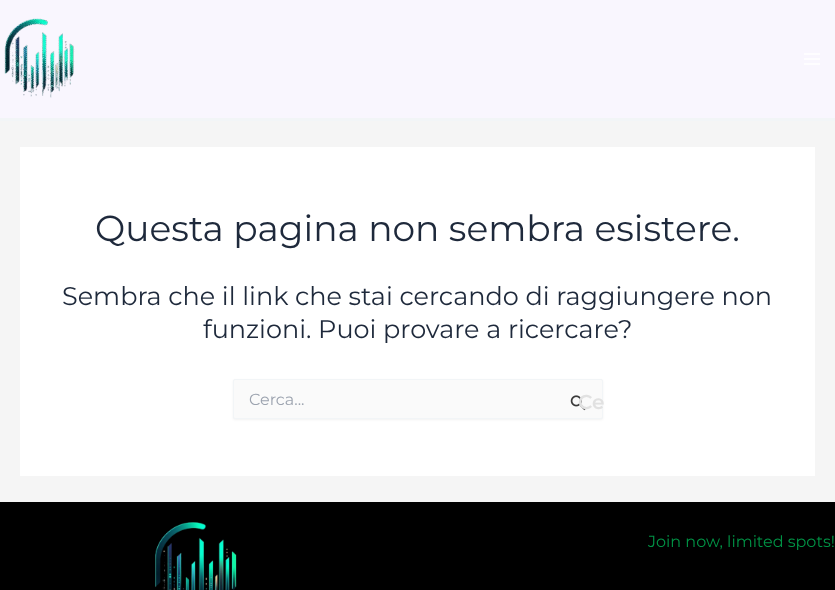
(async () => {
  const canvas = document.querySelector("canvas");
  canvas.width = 835;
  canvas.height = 590;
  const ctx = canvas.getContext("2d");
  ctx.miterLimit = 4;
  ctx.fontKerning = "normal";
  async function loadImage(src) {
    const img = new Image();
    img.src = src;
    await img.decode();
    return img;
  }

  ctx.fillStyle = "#f5f5f5";
  ctx.fillRect(0, 0, 835, 590);
  ctx.fillStyle = "#f9f6fe";
  ctx.fillRect(0, 0, 835, 118);
  ctx.fillStyle = "#f2f5f7";
  ctx.fillRect(0, 118, 835, 3);
  ctx.drawImage(await loadImage("img/1.png"), 4, 18, 71, 80);
  ctx.drawImage(await loadImage("img/2.png"), 804, 53, 16, 12);
  ctx.fillStyle = "#ffffff";
  ctx.fillRect(20, 147, 795, 329);
  ctx.fillStyle = "rgba(0, 0, 0, 0.05)";
  ctx.filter = "blur(1px)";
  ctx.beginPath();
  ctx.roundRect(233, 380, 370, 40, 2);
  ctx.fill();
  ctx.filter = "none";
  ctx.fillStyle = "#fafafa";
  ctx.beginPath();
  ctx.roundRect(233.5, 379.5, 369, 39, 1.5);
  ctx.fill();
  ctx.strokeStyle = "#f2f5f7";
  ctx.stroke();
  ctx.drawImage(await loadImage("img/3.png"), 570, 395, 16, 16);
  ctx.fillStyle = "#000000";
  ctx.fillRect(0, 502, 835, 88);
  ctx.drawImage(await loadImage("img/4.png"), 155, 522, 82, 68);
  ctx.font = "36px Montserrat";
  ctx.fillStyle = "#1e293b";
  ctx.fillText("Questa pagina non sembra esistere.", 95, 241);
  ctx.font = "25.5px Montserrat";
  ctx.fillText("Sembra che il link che stai cercando di raggiungere non", 62, 305);
  ctx.fillText("funzioni. Puoi provare a ricercare?", 203, 338);
  ctx.font = "16px Montserrat";
  ctx.fillStyle = "#9ca3af";
  ctx.fillText("Cerca...", 249, 405);
  ctx.font = "600 20px Montserrat";
  ctx.fillStyle = "#e1e1e1";
  ctx.fillText("Ce", 578, 409);
  ctx.font = "16px Montserrat";
  ctx.fillStyle = "#009245";
  ctx.fillText("Join now, limited spots!", 648, 547);
})();
